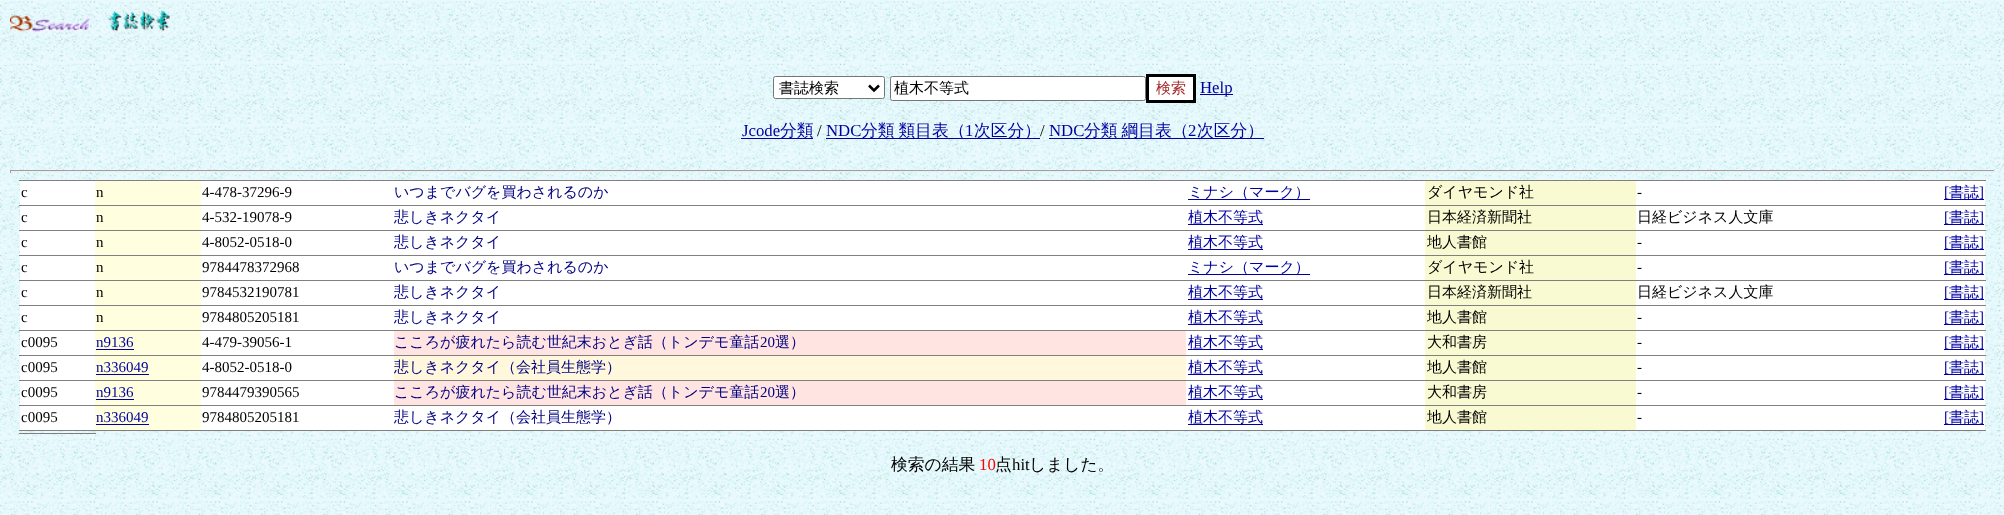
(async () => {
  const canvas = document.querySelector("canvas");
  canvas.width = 2004;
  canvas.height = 515;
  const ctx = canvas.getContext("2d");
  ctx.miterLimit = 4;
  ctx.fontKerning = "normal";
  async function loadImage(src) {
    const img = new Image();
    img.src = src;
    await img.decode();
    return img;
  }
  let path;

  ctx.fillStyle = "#ffffff";
  ctx.fillRect(0, 0, 2004, 515);
  ctx.drawImage(await loadImage("img/1.png"), 0, 0, 2004, 515);
  ctx.drawImage(await loadImage("img/2.png"), 10, 15, 81, 17);
  ctx.drawImage(await loadImage("img/3.png"), 107, 10, 63, 22);
  ctx.beginPath();
  ctx.roundRect(773.5, 76.5, 111, 22, 2);
  ctx.fill();
  ctx.strokeStyle = "#767676";
  ctx.stroke();
  path = new Path2D("M869 85.5L874 90.5L879 85.5");
  ctx.strokeStyle = "#000000";
  ctx.lineWidth = 2.5;
  ctx.stroke(path);
  ctx.beginPath();
  ctx.roundRect(890.5, 76.5, 255, 24, 2);
  ctx.fill();
  ctx.strokeStyle = "#767676";
  ctx.lineWidth = 1;
  ctx.stroke();
  ctx.beginPath();
  ctx.rect(1147.5, 75.5, 47, 26);
  ctx.fill();
  ctx.strokeStyle = "#000000";
  ctx.lineWidth = 3;
  ctx.stroke();
  for (const [x, y, w, h, color] of [
    [1200, 94, 33, 1, "#0000a0"],
    [741, 138, 72, 1, "#0000a0"],
    [826, 138, 214, 1, "#0000a0"],
    [1049, 138, 215, 1, "#0000a0"],
    [10, 170, 1985, 1, "#9f9f9f"],
    [1994, 170, 1, 3, "#eeeeee"],
    [10, 171, 1985, 1, "#eeeeee"],
    [10, 170, 1, 3, "#9f9f9f"],
    [20, 181, 1965, 24, "#ffffff"],
    [95, 181, 106, 24, "#ffffe0"],
    [1188, 199, 122, 1, "#0000a0"],
    [1425, 181, 211, 24, "#fafad2"],
    [19, 180, 1967, 1, "#808080"],
    [1944, 199, 40, 1, "#0000a0"],
    [20, 206, 1965, 24, "#ffffff"],
    [95, 206, 106, 24, "#ffffe0"],
    [1188, 224, 75, 1, "#0000a0"],
    [1425, 206, 211, 24, "#fafad2"],
    [19, 205, 1967, 1, "#808080"],
    [1944, 224, 40, 1, "#0000a0"],
    [20, 231, 1965, 24, "#ffffff"],
    [95, 231, 106, 24, "#ffffe0"],
    [1188, 249, 75, 1, "#0000a0"],
    [1425, 231, 211, 24, "#fafad2"],
    [19, 230, 1967, 1, "#808080"],
    [1944, 249, 40, 1, "#0000a0"],
    [20, 256, 1965, 24, "#ffffff"],
    [95, 256, 106, 24, "#ffffe0"],
    [1188, 274, 122, 1, "#0000a0"],
    [1425, 256, 211, 24, "#fafad2"],
    [19, 255, 1967, 1, "#808080"],
    [1944, 274, 40, 1, "#0000a0"],
    [20, 281, 1965, 24, "#ffffff"],
    [95, 281, 106, 24, "#ffffe0"],
    [1188, 299, 75, 1, "#0000a0"],
    [1425, 281, 211, 24, "#fafad2"],
    [19, 280, 1967, 1, "#808080"],
    [1944, 299, 40, 1, "#0000a0"],
    [20, 306, 1965, 24, "#ffffff"],
    [95, 306, 106, 24, "#ffffe0"],
    [1188, 324, 75, 1, "#0000a0"],
    [1425, 306, 211, 24, "#fafad2"],
    [19, 305, 1967, 1, "#808080"],
    [1944, 324, 40, 1, "#0000a0"],
    [20, 331, 1965, 24, "#ffffff"],
    [95, 331, 106, 24, "#ffffe0"],
    [96, 349, 38, 1, "#0000a0"],
    [394, 331, 792, 24, "#ffe4e1"],
    [1188, 349, 75, 1, "#0000a0"],
    [1425, 331, 211, 24, "#fafad2"],
    [19, 330, 1967, 1, "#808080"],
    [1944, 349, 40, 1, "#0000a0"],
    [20, 356, 1965, 24, "#ffffff"],
    [95, 356, 106, 24, "#ffffe0"],
    [96, 374, 53, 1, "#0000a0"],
    [394, 356, 792, 24, "#fff8dc"],
    [1188, 374, 75, 1, "#0000a0"],
    [1425, 356, 211, 24, "#fafad2"],
    [19, 355, 1967, 1, "#808080"],
    [1944, 374, 40, 1, "#0000a0"],
    [20, 381, 1965, 24, "#ffffff"],
    [95, 381, 106, 24, "#ffffe0"],
    [96, 399, 38, 1, "#0000a0"],
    [394, 381, 792, 24, "#ffe4e1"],
    [1188, 399, 75, 1, "#0000a0"],
    [1425, 381, 211, 24, "#fafad2"],
    [19, 380, 1967, 1, "#808080"],
    [1944, 399, 40, 1, "#0000a0"],
    [20, 406, 1965, 24, "#ffffff"],
    [95, 406, 106, 24, "#ffffe0"],
    [96, 424, 53, 1, "#0000a0"],
    [1188, 424, 75, 1, "#0000a0"],
    [1425, 406, 211, 24, "#fafad2"],
    [19, 405, 1967, 1, "#808080"],
    [19, 430, 77, 1, "#808080"],
    [95, 430, 1891, 1, "#808080"],
    [1944, 424, 40, 1, "#0000a0"],
    [19, 433, 77, 1, "#808080"],
  ]) {
    ctx.fillStyle = color;
    ctx.fillRect(x, y, w, h);
  }
  ctx.font = "500 15px WenQuanYi Zen Hei";
  ctx.fillStyle = "#000000";
  ctx.fillText("書誌検索", 779, 93);
  ctx.fillText("植木不等式", 894, 93);
  ctx.fillStyle = "#a52a2a";
  ctx.fillText("検索", 1156, 93);
  ctx.font = "16.75px Liberation Serif";
  ctx.fillStyle = "#0000a0";
  ctx.fillText("Help", 1200, 93);
  ctx.fillText("Jcode", 742, 136);
  ctx.font = "500 16.75px WenQuanYi Zen Hei";
  ctx.fillText("分類", 780, 136);
  ctx.font = "16.75px Liberation Serif";
  ctx.fillStyle = "#000000";
  ctx.fillText("/", 817, 136);
  ctx.fillStyle = "#0000a0";
  ctx.fillText("NDC", 826, 136);
  ctx.wordSpacing = "-1px";
  ctx.font = "500 16.75px WenQuanYi Zen Hei";
  ctx.fillText("分類 類目表（", 861, 136);
  ctx.wordSpacing = "0px";
  ctx.font = "16.75px Liberation Serif";
  ctx.fillText("1", 965, 136);
  ctx.font = "500 16.75px WenQuanYi Zen Hei";
  ctx.fillText("次区分）", 974, 136);
  ctx.font = "16.75px Liberation Serif";
  ctx.fillStyle = "#000000";
  ctx.fillText("/", 1040, 136);
  ctx.fillStyle = "#0000a0";
  ctx.fillText("NDC", 1049, 136);
  ctx.wordSpacing = "-1px";
  ctx.font = "500 16.75px WenQuanYi Zen Hei";
  ctx.fillText("分類 綱目表（", 1084, 136);
  ctx.wordSpacing = "0px";
  ctx.font = "16.75px Liberation Serif";
  ctx.fillText("2", 1188, 136);
  ctx.font = "500 16.75px WenQuanYi Zen Hei";
  ctx.fillText("次区分）", 1197, 136);
  ctx.font = "15px Liberation Serif";
  ctx.fillStyle = "#000000";
  for (const [text, x, y] of [
    ["c", 21, 197],
    ["n", 96, 197],
    ["4-478-37296-9", 202, 197],
  ]) {
    ctx.fillText(text, x, y);
  }
  ctx.font = "500 15px WenQuanYi Zen Hei";
  ctx.fillStyle = "#000080";
  ctx.fillText("いつまでバグを買わされるのか", 394, 197);
  ctx.fillStyle = "#0000a0";
  ctx.fillText("ミナシ（マーク）", 1188, 197);
  ctx.fillStyle = "#000000";
  ctx.fillText("ダイヤモンド社", 1427, 197);
  ctx.font = "15px Liberation Serif";
  ctx.fillText("-", 1637, 197);
  ctx.fillStyle = "#0000a0";
  ctx.fillText("[", 1944, 197);
  ctx.font = "500 15px WenQuanYi Zen Hei";
  ctx.fillText("書誌", 1949, 197);
  ctx.font = "15px Liberation Serif";
  ctx.fillText("]", 1979, 197);
  ctx.fillStyle = "#000000";
  for (const [text, x, y] of [
    ["c", 21, 222],
    ["n", 96, 222],
    ["4-532-19078-9", 202, 222],
  ]) {
    ctx.fillText(text, x, y);
  }
  ctx.font = "500 15px WenQuanYi Zen Hei";
  ctx.fillStyle = "#000080";
  ctx.fillText("悲しきネクタイ", 394, 222);
  ctx.fillStyle = "#0000a0";
  ctx.fillText("植木不等式", 1188, 222);
  ctx.fillStyle = "#000000";
  ctx.fillText("日本経済新聞社", 1427, 222);
  ctx.fillText("日経ビジネス人文庫", 1637, 222);
  ctx.font = "15px Liberation Serif";
  ctx.fillStyle = "#0000a0";
  ctx.fillText("[", 1944, 222);
  ctx.font = "500 15px WenQuanYi Zen Hei";
  ctx.fillText("書誌", 1949, 222);
  ctx.font = "15px Liberation Serif";
  ctx.fillText("]", 1979, 222);
  ctx.fillStyle = "#000000";
  for (const [text, x, y] of [
    ["c", 21, 247],
    ["n", 96, 247],
    ["4-8052-0518-0", 202, 247],
  ]) {
    ctx.fillText(text, x, y);
  }
  ctx.font = "500 15px WenQuanYi Zen Hei";
  ctx.fillStyle = "#000080";
  ctx.fillText("悲しきネクタイ", 394, 247);
  ctx.fillStyle = "#0000a0";
  ctx.fillText("植木不等式", 1188, 247);
  ctx.fillStyle = "#000000";
  ctx.fillText("地人書館", 1427, 247);
  ctx.font = "15px Liberation Serif";
  ctx.fillText("-", 1637, 247);
  ctx.fillStyle = "#0000a0";
  ctx.fillText("[", 1944, 247);
  ctx.font = "500 15px WenQuanYi Zen Hei";
  ctx.fillText("書誌", 1949, 247);
  ctx.font = "15px Liberation Serif";
  ctx.fillText("]", 1979, 247);
  ctx.fillStyle = "#000000";
  for (const [text, x, y] of [
    ["c", 21, 272],
    ["n", 96, 272],
    ["9784478372968", 202, 272],
  ]) {
    ctx.fillText(text, x, y);
  }
  ctx.font = "500 15px WenQuanYi Zen Hei";
  ctx.fillStyle = "#000080";
  ctx.fillText("いつまでバグを買わされるのか", 394, 272);
  ctx.fillStyle = "#0000a0";
  ctx.fillText("ミナシ（マーク）", 1188, 272);
  ctx.fillStyle = "#000000";
  ctx.fillText("ダイヤモンド社", 1427, 272);
  ctx.font = "15px Liberation Serif";
  ctx.fillText("-", 1637, 272);
  ctx.fillStyle = "#0000a0";
  ctx.fillText("[", 1944, 272);
  ctx.font = "500 15px WenQuanYi Zen Hei";
  ctx.fillText("書誌", 1949, 272);
  ctx.font = "15px Liberation Serif";
  ctx.fillText("]", 1979, 272);
  ctx.fillStyle = "#000000";
  for (const [text, x, y] of [
    ["c", 21, 297],
    ["n", 96, 297],
    ["9784532190781", 202, 297],
  ]) {
    ctx.fillText(text, x, y);
  }
  ctx.font = "500 15px WenQuanYi Zen Hei";
  ctx.fillStyle = "#000080";
  ctx.fillText("悲しきネクタイ", 394, 297);
  ctx.fillStyle = "#0000a0";
  ctx.fillText("植木不等式", 1188, 297);
  ctx.fillStyle = "#000000";
  ctx.fillText("日本経済新聞社", 1427, 297);
  ctx.fillText("日経ビジネス人文庫", 1637, 297);
  ctx.font = "15px Liberation Serif";
  ctx.fillStyle = "#0000a0";
  ctx.fillText("[", 1944, 297);
  ctx.font = "500 15px WenQuanYi Zen Hei";
  ctx.fillText("書誌", 1949, 297);
  ctx.font = "15px Liberation Serif";
  ctx.fillText("]", 1979, 297);
  ctx.fillStyle = "#000000";
  for (const [text, x, y] of [
    ["c", 21, 322],
    ["n", 96, 322],
    ["9784805205181", 202, 322],
  ]) {
    ctx.fillText(text, x, y);
  }
  ctx.font = "500 15px WenQuanYi Zen Hei";
  ctx.fillStyle = "#000080";
  ctx.fillText("悲しきネクタイ", 394, 322);
  ctx.fillStyle = "#0000a0";
  ctx.fillText("植木不等式", 1188, 322);
  ctx.fillStyle = "#000000";
  ctx.fillText("地人書館", 1427, 322);
  ctx.font = "15px Liberation Serif";
  ctx.fillText("-", 1637, 322);
  ctx.fillStyle = "#0000a0";
  ctx.fillText("[", 1944, 322);
  ctx.font = "500 15px WenQuanYi Zen Hei";
  ctx.fillText("書誌", 1949, 322);
  ctx.font = "15px Liberation Serif";
  ctx.fillText("]", 1979, 322);
  ctx.fillStyle = "#000000";
  ctx.fillText("c0095", 21, 347);
  ctx.fillStyle = "#0000a0";
  ctx.fillText("n9136", 96, 347);
  ctx.fillStyle = "#000000";
  ctx.fillText("4-479-39056-1", 202, 347);
  ctx.font = "500 15px WenQuanYi Zen Hei";
  ctx.fillStyle = "#000080";
  ctx.fillText("こころが疲れたら読む世紀末おとぎ話（トンデモ童話", 394, 347);
  ctx.font = "15px Liberation Serif";
  ctx.fillText("20", 760, 347);
  ctx.font = "500 15px WenQuanYi Zen Hei";
  ctx.fillText("選）", 775, 347);
  ctx.fillStyle = "#0000a0";
  ctx.fillText("植木不等式", 1188, 347);
  ctx.fillStyle = "#000000";
  ctx.fillText("大和書房", 1427, 347);
  ctx.font = "15px Liberation Serif";
  ctx.fillText("-", 1637, 347);
  ctx.fillStyle = "#0000a0";
  ctx.fillText("[", 1944, 347);
  ctx.font = "500 15px WenQuanYi Zen Hei";
  ctx.fillText("書誌", 1949, 347);
  ctx.font = "15px Liberation Serif";
  ctx.fillText("]", 1979, 347);
  ctx.fillStyle = "#000000";
  ctx.fillText("c0095", 21, 372);
  ctx.fillStyle = "#0000a0";
  ctx.fillText("n336049", 96, 372);
  ctx.fillStyle = "#000000";
  ctx.fillText("4-8052-0518-0", 202, 372);
  ctx.font = "500 15px WenQuanYi Zen Hei";
  ctx.fillStyle = "#000080";
  ctx.fillText("悲しきネクタイ（会社員生態学）", 394, 372);
  ctx.fillStyle = "#0000a0";
  ctx.fillText("植木不等式", 1188, 372);
  ctx.fillStyle = "#000000";
  ctx.fillText("地人書館", 1427, 372);
  ctx.font = "15px Liberation Serif";
  ctx.fillText("-", 1637, 372);
  ctx.fillStyle = "#0000a0";
  ctx.fillText("[", 1944, 372);
  ctx.font = "500 15px WenQuanYi Zen Hei";
  ctx.fillText("書誌", 1949, 372);
  ctx.font = "15px Liberation Serif";
  ctx.fillText("]", 1979, 372);
  ctx.fillStyle = "#000000";
  ctx.fillText("c0095", 21, 397);
  ctx.fillStyle = "#0000a0";
  ctx.fillText("n9136", 96, 397);
  ctx.fillStyle = "#000000";
  ctx.fillText("9784479390565", 202, 397);
  ctx.font = "500 15px WenQuanYi Zen Hei";
  ctx.fillStyle = "#000080";
  ctx.fillText("こころが疲れたら読む世紀末おとぎ話（トンデモ童話", 394, 397);
  ctx.font = "15px Liberation Serif";
  ctx.fillText("20", 760, 397);
  ctx.font = "500 15px WenQuanYi Zen Hei";
  ctx.fillText("選）", 775, 397);
  ctx.fillStyle = "#0000a0";
  ctx.fillText("植木不等式", 1188, 397);
  ctx.fillStyle = "#000000";
  ctx.fillText("大和書房", 1427, 397);
  ctx.font = "15px Liberation Serif";
  ctx.fillText("-", 1637, 397);
  ctx.fillStyle = "#0000a0";
  ctx.fillText("[", 1944, 397);
  ctx.font = "500 15px WenQuanYi Zen Hei";
  ctx.fillText("書誌", 1949, 397);
  ctx.font = "15px Liberation Serif";
  ctx.fillText("]", 1979, 397);
  ctx.fillStyle = "#000000";
  ctx.fillText("c0095", 21, 422);
  ctx.fillStyle = "#0000a0";
  ctx.fillText("n336049", 96, 422);
  ctx.fillStyle = "#000000";
  ctx.fillText("9784805205181", 202, 422);
  ctx.font = "500 15px WenQuanYi Zen Hei";
  ctx.fillStyle = "#000080";
  ctx.fillText("悲しきネクタイ（会社員生態学）", 394, 422);
  ctx.fillStyle = "#0000a0";
  ctx.fillText("植木不等式", 1188, 422);
  ctx.fillStyle = "#000000";
  ctx.fillText("地人書館", 1427, 422);
  ctx.font = "15px Liberation Serif";
  ctx.fillText("-", 1637, 422);
  ctx.fillStyle = "#0000a0";
  ctx.fillText("[", 1944, 422);
  ctx.font = "500 15px WenQuanYi Zen Hei";
  ctx.fillText("書誌", 1949, 422);
  ctx.font = "15px Liberation Serif";
  ctx.fillText("]", 1979, 422);
  ctx.font = "500 16.75px WenQuanYi Zen Hei";
  ctx.fillStyle = "#000000";
  ctx.fillText("検索の結果", 891, 470);
  ctx.font = "16.75px Liberation Serif";
  ctx.fillStyle = "#ff0000";
  ctx.fillText("10", 979, 470);
  ctx.font = "500 16.75px WenQuanYi Zen Hei";
  ctx.fillStyle = "#000000";
  ctx.fillText("点", 995, 470);
  ctx.font = "16.75px Liberation Serif";
  ctx.fillText("hit", 1012, 470);
  ctx.font = "500 16.75px WenQuanYi Zen Hei";
  ctx.fillText("しました。", 1029, 470);
})();
